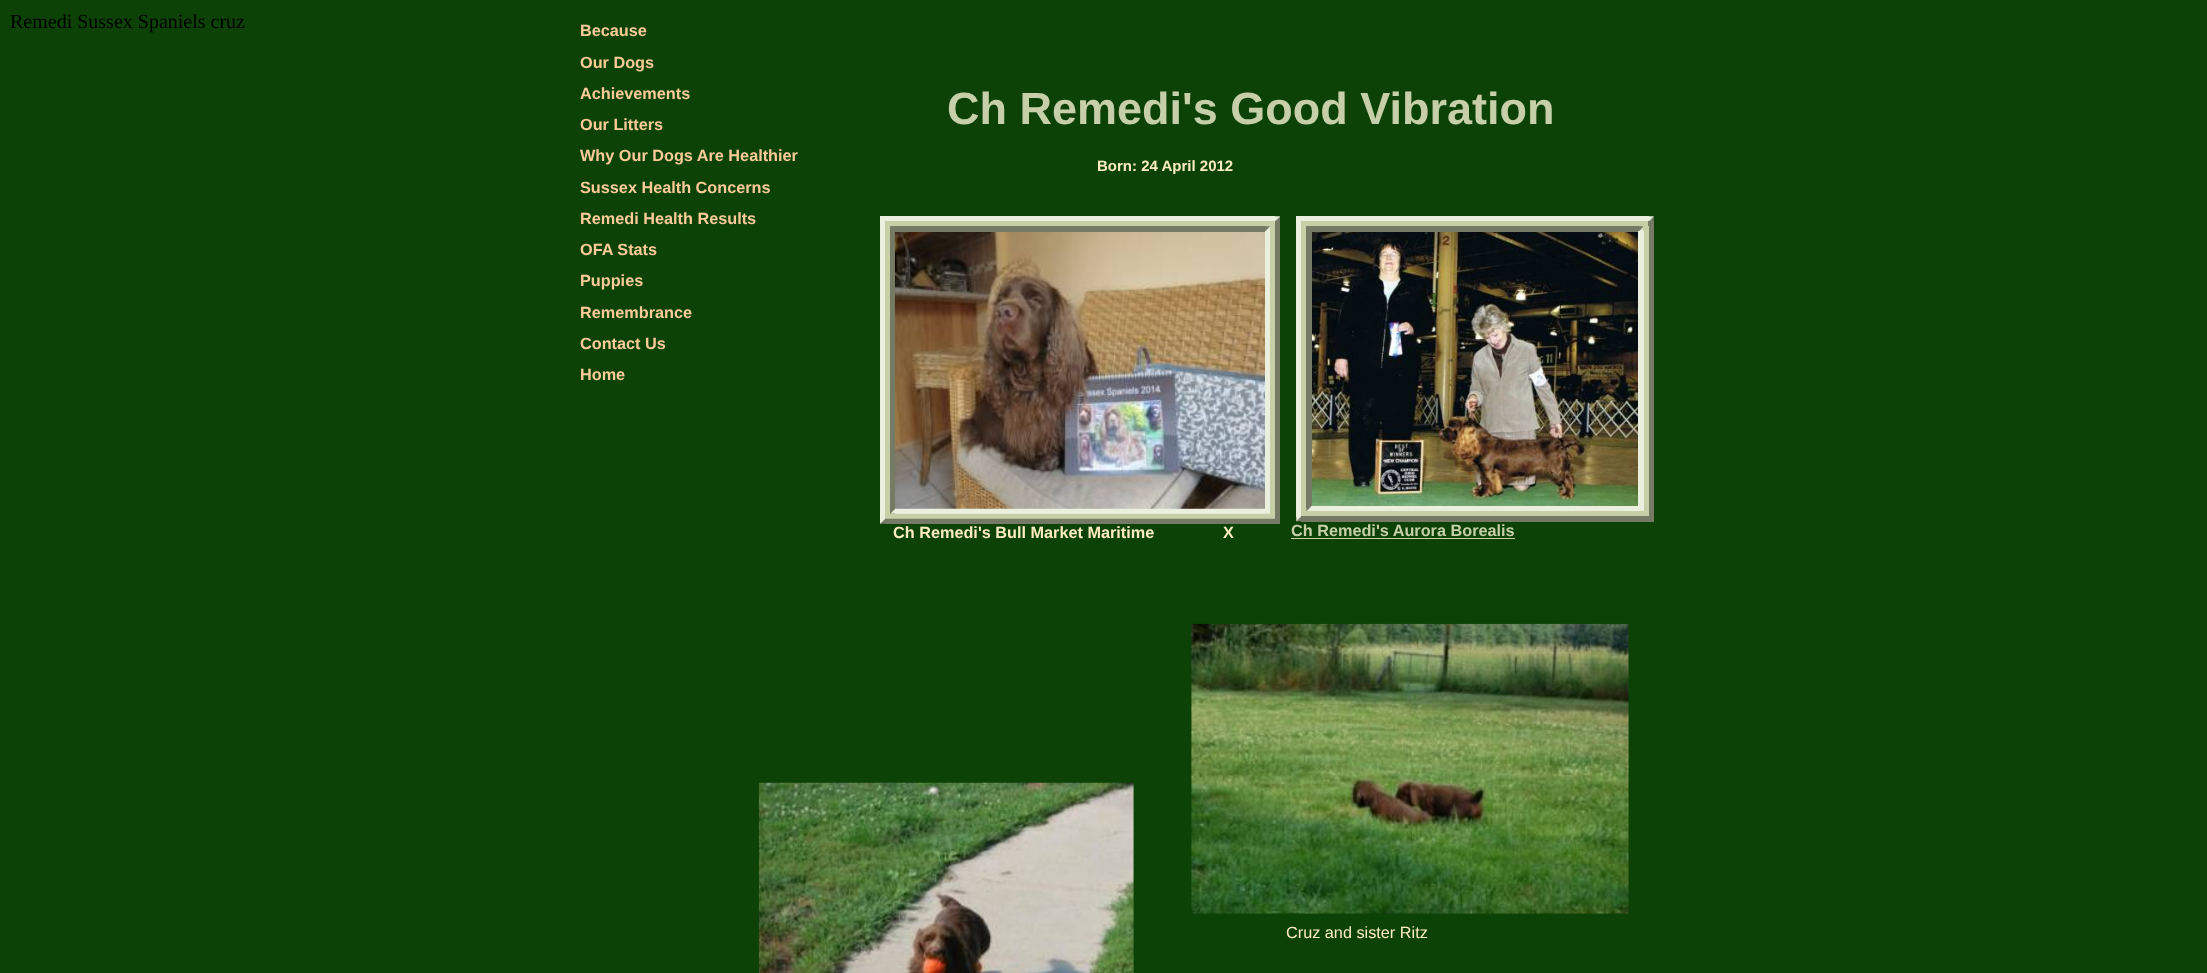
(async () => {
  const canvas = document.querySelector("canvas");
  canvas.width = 2207;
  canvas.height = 973;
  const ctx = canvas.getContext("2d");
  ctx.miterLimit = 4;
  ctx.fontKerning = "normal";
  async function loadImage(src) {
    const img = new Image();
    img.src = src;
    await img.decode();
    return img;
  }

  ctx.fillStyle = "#0d4207";
  ctx.fillRect(0, 0, 2207, 973);
  ctx.fillStyle = "#ebf0de";
  ctx.fillRect(880, 216, 395, 5);
  ctx.fillStyle = "#747a63";
  ctx.fillRect(1275, 221, 5, 303);
  ctx.drawImage(await loadImage("img/1.png"), 1275, 216, 5, 6);
  for (const [x, y, w, h, color] of [
    [880, 221, 5, 298, "#ebf0de"],
    [885, 226, 5, 293, "#c6cfa8"],
    [1270, 226, 5, 293, "#c6cfa8"],
    [885, 221, 390, 6, "#c6cfa8"],
    [1275, 221, 1, 1, "#7a7f68"],
    [890, 231, 5, 278, "#747a63"],
    [890, 226, 375, 6, "#747a63"],
    [1265, 231, 5, 283, "#ebf0de"],
  ]) {
    ctx.fillStyle = color;
    ctx.fillRect(x, y, w, h);
  }
  ctx.drawImage(await loadImage("img/2.png"), 1265, 226, 5, 6);
  ctx.fillStyle = "#e5ead8";
  ctx.fillRect(1265, 231, 1, 1);
  ctx.drawImage(await loadImage("img/3.png"), 890, 508, 5, 6);
  ctx.fillStyle = "#ebf0de";
  ctx.fillRect(895, 509, 370, 5);
  ctx.drawImage(await loadImage("img/9.png"), 895, 232, 370, 277);
  for (const [x, y, w, h, color] of [
    [895, 508, 370, 1, "rgba(235, 239, 223, 0.25)"],
    [890, 514, 380, 4, "#c6cfa8"],
    [890, 513, 380, 1, "rgba(199, 207, 167, 0.25)"],
  ]) {
    ctx.fillStyle = color;
    ctx.fillRect(x, y, w, h);
  }
  ctx.drawImage(await loadImage("img/4.png"), 880, 518, 5, 6);
  for (const [x, y, w, h, color] of [
    [885, 519, 390, 5, "#747a63"],
    [885, 518, 390, 1, "#b2b997"],
    [1296, 216, 353, 5, "#ebf0de"],
  ]) {
    ctx.fillStyle = color;
    ctx.fillRect(x, y, w, h);
  }
  ctx.drawImage(await loadImage("img/5.png"), 1648, 216, 6, 5);
  for (const [x, y, w, h, color] of [
    [1296, 221, 5, 296, "#ebf0de"],
    [1301, 221, 348, 6, "#c6cfa8"],
    [1648, 221, 6, 301, "#747a63"],
    [1301, 227, 6, 290, "#c6cfa8"],
    [1306, 226, 333, 6, "#747a63"],
  ]) {
    ctx.fillStyle = color;
    ctx.fillRect(x, y, w, h);
  }
  ctx.drawImage(await loadImage("img/6.png"), 1638, 226, 5, 5);
  for (const [x, y, w, h, color] of [
    [1643, 226, 6, 291, "#c6cfa8"],
    [1306, 232, 6, 275, "#747a63"],
    [1638, 231, 6, 281, "#ebf0de"],
  ]) {
    ctx.fillStyle = color;
    ctx.fillRect(x, y, w, h);
  }
  ctx.drawImage(await loadImage("img/7.png"), 1306, 506, 5, 5);
  ctx.fillRect(1311, 506, 327, 5);
  ctx.fillStyle = "#c6cfa8";
  ctx.fillRect(1306, 511, 338, 5);
  ctx.drawImage(await loadImage("img/8.png"), 1296, 516, 5, 6);
  ctx.fillStyle = "#747a63";
  ctx.fillRect(1301, 516, 348, 6);
  ctx.drawImage(await loadImage("img/10.png"), 1312, 232, 326, 274);
  ctx.fillStyle = "#c6cfa8";
  ctx.fillRect(1291, 538, 224, 1);
  ctx.drawImage(await loadImage("img/11.png"), 758, 782, 376, 191);
  ctx.drawImage(await loadImage("img/12.png"), 1191, 623, 438, 291);
  ctx.font = "20px Liberation Serif";
  ctx.fillStyle = "#000000";
  ctx.fillText("Remedi Sussex Spaniels cruz", 10, 28);
  ctx.font = "bold 16.25px Liberation Sans";
  ctx.fillStyle = "#ffcc99";
  for (const [text, x, y] of [
    ["Because", 580, 36],
    ["Our Dogs", 580, 68],
    ["Achievements", 580, 99],
    ["Our Litters", 580, 130],
    ["Why Our Dogs Are Healthier", 580, 161],
    ["Sussex Health Concerns", 580, 193],
    ["Remedi Health Results", 580, 224],
    ["OFA Stats", 580, 255],
    ["Puppies", 580, 286],
    ["Remembrance", 580, 318],
    ["Contact Us", 580, 349],
    ["Home", 580, 380],
  ]) {
    ctx.fillText(text, x, y);
  }
  ctx.font = "bold 45px Liberation Sans";
  ctx.fillStyle = "#c6cfa8";
  ctx.fillText("Ch Remedi's Good Vibration", 947, 124);
  ctx.font = "bold 15px Liberation Sans";
  ctx.fillStyle = "#fdedc0";
  ctx.fillText("Born: 24 April 2012", 1097, 171);
  ctx.font = "bold 16.25px Liberation Sans";
  ctx.fillText("Ch Remedi's Bull Market Maritime", 893, 538);
  ctx.fillText("X", 1223, 538);
  ctx.fillStyle = "#c6cfa8";
  ctx.fillText("Ch Remedi's Aurora Borealis", 1291, 536);
  ctx.font = "16.25px Liberation Sans";
  ctx.fillStyle = "#fdedc0";
  ctx.fillText("Cruz and sister Ritz", 1286, 938);
})();
